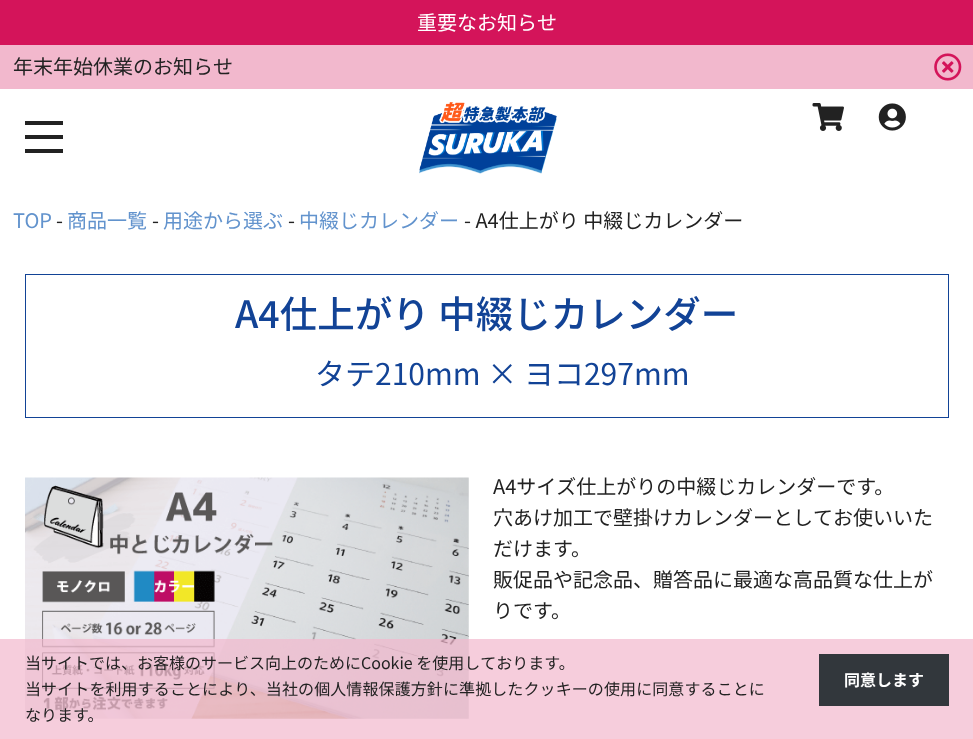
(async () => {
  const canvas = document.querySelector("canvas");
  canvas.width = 973;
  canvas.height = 739;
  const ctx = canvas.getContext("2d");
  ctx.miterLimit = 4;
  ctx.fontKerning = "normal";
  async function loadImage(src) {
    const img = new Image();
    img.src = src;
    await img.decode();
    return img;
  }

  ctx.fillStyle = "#ffffff";
  ctx.fillRect(0, 0, 973, 739);
  ctx.fillStyle = "#d4145a";
  ctx.fillRect(0, 0, 973, 45);
  ctx.fillStyle = "#f2b8cd";
  ctx.fillRect(0, 45, 973, 44);
  ctx.drawImage(await loadImage("img/1.png"), 934, 53, 28, 28);
  ctx.drawImage(await loadImage("img/2.png"), 419, 102, 138, 72);
  ctx.drawImage(await loadImage("img/3.png"), 812, 103, 32, 28);
  ctx.drawImage(await loadImage("img/4.png"), 878, 103, 28, 28);
  for (const [x, y, w, h, color] of [
    [25, 121, 38, 4, "#222222"],
    [25, 135, 38, 4, "#222222"],
    [25, 149, 38, 4, "#222222"],
  ]) {
    ctx.fillStyle = color;
    ctx.fillRect(x, y, w, h);
  }
  ctx.strokeStyle = "#124396";
  ctx.strokeRect(25.5, 274.5, 923, 143);
  ctx.drawImage(await loadImage("img/5.png"), 25, 477, 444, 242);
  ctx.fillStyle = "rgba(242, 184, 205, 0.7)";
  ctx.fillRect(0, 639, 973, 100);
  ctx.fillStyle = "#32373c";
  ctx.fillRect(819, 654, 130, 52);
  ctx.font = "20px Noto Sans JP";
  ctx.fillStyle = "#ffffff";
  ctx.fillText("重要なお知らせ", 417, 30);
  ctx.fillStyle = "#222222";
  ctx.fillText("年末年始休業のお知らせ", 13, 74);
  ctx.fillStyle = "#6293cd";
  ctx.fillText("TOP", 13, 228);
  ctx.fillStyle = "#222222";
  ctx.fillText("-", 56, 228);
  ctx.fillStyle = "#6293cd";
  ctx.fillText("商品一覧", 67, 228);
  ctx.fillStyle = "#222222";
  ctx.fillText("-", 152, 228);
  ctx.fillStyle = "#6293cd";
  ctx.fillText("用途から選ぶ", 163, 228);
  ctx.fillStyle = "#222222";
  ctx.fillText("-", 288, 228);
  ctx.fillStyle = "#6293cd";
  ctx.fillText("中綴じカレンダー", 299, 228);
  ctx.fillStyle = "#222222";
  ctx.fillText("- A4仕上がり 中綴じカレンダー", 464, 228);
  ctx.font = "500 37.5px Noto Sans JP";
  ctx.fillStyle = "#124396";
  ctx.fillText("A4仕上がり 中綴じカレンダー", 235, 328);
  ctx.font = "30px Noto Sans JP";
  ctx.fillText("タテ210mm × ヨコ297mm", 315, 385);
  ctx.font = "20px Noto Sans JP";
  ctx.fillStyle = "#222222";
  for (const [text, x, y] of [
    ["A4サイズ仕上がりの中綴じカレンダーです。", 493, 494],
    ["穴あけ加工で壁掛けカレンダーとしてお使いいた", 493, 525],
    ["だけます。", 493, 556],
    ["販促品や記念品、贈答品に最適な高品質な仕上が", 493, 587],
    ["りです。", 493, 618],
  ]) {
    ctx.fillText(text, x, y);
  }
  ctx.font = "16px Noto Sans JP";
  ctx.fillText("当サイトでは、お客様のサービス向上のためにCookie を使用しております。", 25, 669);
  ctx.letterSpacing = "0.1px";
  ctx.fillText("当サイトを利用することにより、当社の個人情報保護方針に準拠したクッキーの使用に同意することに", 25, 695);
  ctx.letterSpacing = "0px";
  ctx.fillText("なります。", 25, 721);
  ctx.font = "bold 16px Noto Sans JP";
  ctx.fillStyle = "#ffffff";
  ctx.fillText("同意します", 844, 686);
})();
